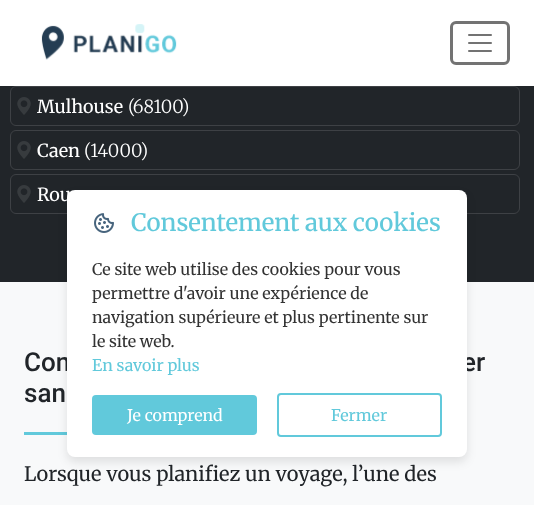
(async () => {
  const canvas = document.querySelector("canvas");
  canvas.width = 534;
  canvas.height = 505;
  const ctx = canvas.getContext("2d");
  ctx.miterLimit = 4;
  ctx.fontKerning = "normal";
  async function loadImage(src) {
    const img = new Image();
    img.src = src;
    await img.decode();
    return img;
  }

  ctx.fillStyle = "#212529";
  ctx.fillRect(0, 0, 534, 505);
  ctx.fillStyle = "#ffffff";
  ctx.fillRect(0, 0, 534, 86);
  ctx.drawImage(await loadImage("img/1.png"), 41, 24, 136, 36);
  ctx.beginPath();
  ctx.roundRect(451.5, 22.5, 57, 41, 4.5);
  ctx.strokeStyle = "#737373";
  ctx.lineWidth = 3;
  ctx.stroke();
  ctx.drawImage(await loadImage("img/2.png"), 468, 34, 24, 18);
  ctx.beginPath();
  ctx.roundRect(10.5, 86.5, 509, 39, 5.5);
  ctx.strokeStyle = "#3e4145";
  ctx.lineWidth = 1;
  ctx.stroke();
  ctx.drawImage(await loadImage("img/3.png"), 17, 97, 14, 18);
  ctx.beginPath();
  ctx.roundRect(10.5, 130.5, 509, 39, 5.5);
  ctx.stroke();
  ctx.drawImage(await loadImage("img/3.png"), 17, 141, 14, 18);
  ctx.beginPath();
  ctx.roundRect(10.5, 174.5, 509, 39, 5.5);
  ctx.stroke();
  ctx.drawImage(await loadImage("img/3.png"), 17, 185, 14, 18);
  ctx.fillStyle = "#f8f9fa";
  ctx.fillRect(0, 282, 534, 223);
  ctx.fillStyle = "#61c9db";
  ctx.fillRect(24, 432, 43, 3);
  ctx.fillStyle = "rgba(0, 0, 0, 0.1)";
  ctx.filter = "blur(5px)";
  ctx.beginPath();
  ctx.roundRect(67, 195, 400, 267, 8);
  ctx.fill();
  ctx.filter = "none";
  ctx.font = "18px Merriweather";
  ctx.fillStyle = "#ffffff";
  ctx.fillText("Mulhouse", 37, 113);
  ctx.font = "300 18px Merriweather";
  ctx.fillText("(68100)", 128, 113);
  ctx.font = "18px Merriweather";
  ctx.fillText("Caen", 37, 157);
  ctx.font = "300 18px Merriweather";
  ctx.fillText("(14000)", 84, 157);
  ctx.font = "18px Merriweather";
  ctx.fillText("Rou", 37, 201);
  ctx.font = "500 26px Roboto";
  ctx.fillStyle = "#212529";
  for (const [text, x, y] of [
    ["Com", 24, 371],
    ["er", 462, 371],
    ["san", 24, 402],
  ]) {
    ctx.fillText(text, x, y);
  }
  ctx.font = "20px Merriweather";
  ctx.fillText("Lorsque vous planifiez un voyage, l’une des", 24, 481);
  ctx.fillStyle = "#ffffff";
  ctx.beginPath();
  ctx.roundRect(67, 190, 400, 267, 8);
  ctx.fill();
  ctx.drawImage(await loadImage("img/4.png"), 94, 213, 20, 20);
  ctx.font = "500 24px Merriweather";
  ctx.fillStyle = "#61c9db";
  ctx.fillText("Consentement aux cookies", 131, 231);
  ctx.font = "16px Merriweather";
  ctx.fillStyle = "#333333";
  for (const [text, x, y] of [
    ["Ce site web utilise des cookies pour vous", 92, 275],
    ["permettre d'avoir une expérience de", 92, 299],
    ["navigation supérieure et plus pertinente sur", 92, 323],
    ["le site web.", 92, 347],
  ]) {
    ctx.fillText(text, x, y);
  }
  ctx.fillStyle = "#61c9db";
  ctx.fillText("En savoir plus", 92, 371);
  ctx.beginPath();
  ctx.roundRect(92, 395, 165, 40, 4);
  ctx.fill();
  ctx.fillStyle = "#ffffff";
  ctx.fillText("Je comprend", 127, 421);
  ctx.beginPath();
  ctx.roundRect(278, 394, 163, 42, 3);
  ctx.strokeStyle = "#61c9db";
  ctx.lineWidth = 2;
  ctx.stroke();
  ctx.fillStyle = "#61c9db";
  ctx.fillText("Fermer", 331, 421);
})();
